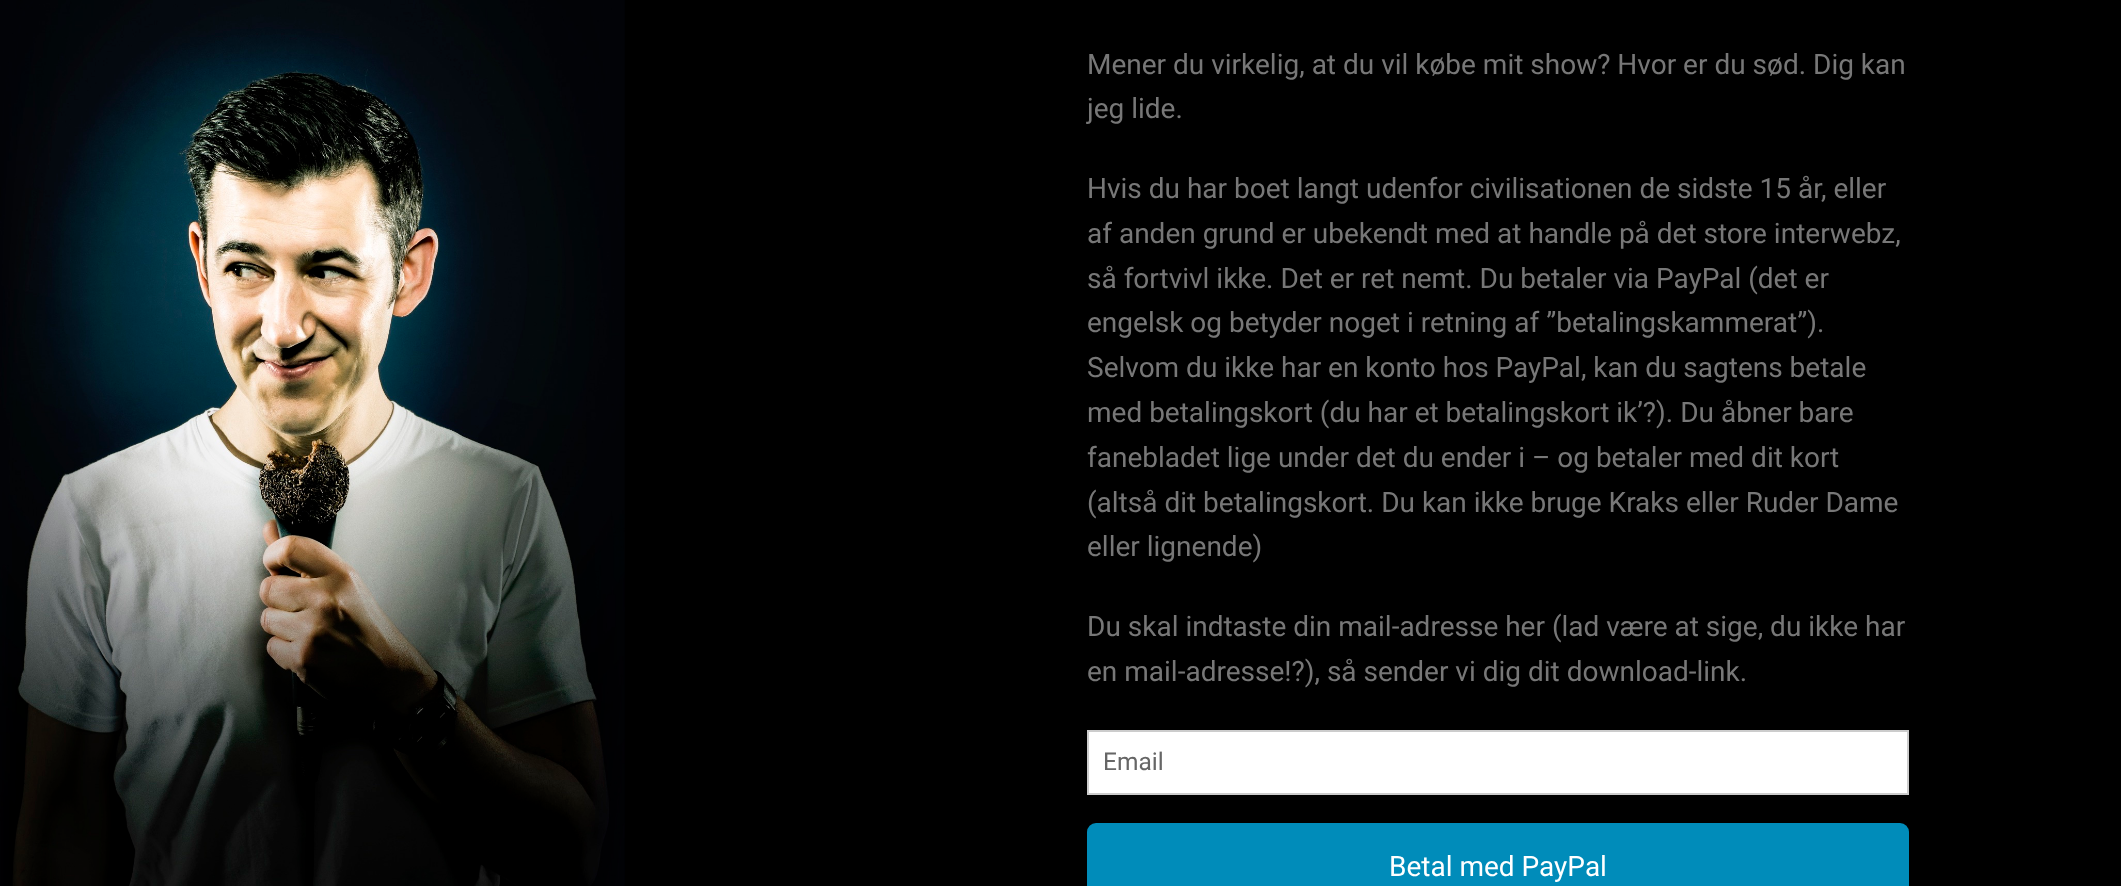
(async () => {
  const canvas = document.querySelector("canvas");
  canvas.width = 2121;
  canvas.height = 886;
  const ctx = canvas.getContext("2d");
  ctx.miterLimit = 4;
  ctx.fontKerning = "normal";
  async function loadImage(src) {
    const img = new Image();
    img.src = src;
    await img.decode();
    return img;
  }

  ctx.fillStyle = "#000000";
  ctx.fillRect(0, 0, 2121, 886);
  ctx.drawImage(await loadImage("img/1.png"), 0, 0, 625, 886);
  ctx.fillStyle = "#ffffff";
  ctx.beginPath();
  ctx.rect(1088, 731, 820, 63);
  ctx.fill();
  ctx.strokeStyle = "#cccccc";
  ctx.lineWidth = 2;
  ctx.stroke();
  ctx.fillStyle = "#008cba";
  ctx.beginPath();
  ctx.roundRect(1087, 823, 822, 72, 9);
  ctx.fill();
  ctx.font = "28px Roboto";
  ctx.fillStyle = "#777777";
  for (const [text, x, y] of [
    ["Mener du virkelig, at du vil købe mit show? Hvor er du sød. Dig kan", 1087, 74],
    ["jeg lide.", 1087, 118],
    ["Hvis du har boet langt udenfor civilisationen de sidste 15 år, eller", 1087, 198],
    ["af anden grund er ubekendt med at handle på det store interwebz,", 1087, 243],
    ["så fortvivl ikke. Det er ret nemt. Du betaler via PayPal (det er", 1087, 288],
    ["engelsk og betyder noget i retning af ”betalingskammerat”).", 1087, 332],
    ["Selvom du ikke har en konto hos PayPal, kan du sagtens betale", 1087, 377],
    ["med betalingskort (du har et betalingskort ik’?). Du åbner bare", 1087, 422],
    ["fanebladet lige under det du ender i – og betaler med dit kort", 1087, 467],
    ["(altså dit betalingskort. Du kan ikke bruge Kraks eller Ruder Dame", 1087, 512],
    ["eller lignende)", 1087, 556],
    ["Du skal indtaste din mail-adresse her (lad være at sige, du ikke har", 1087, 636],
    ["en mail-adresse!?), så sender vi dig dit download-link.", 1087, 681],
  ]) {
    ctx.fillText(text, x, y);
  }
  ctx.font = "24.5px Roboto";
  ctx.fillStyle = "#666666";
  ctx.fillText("Email", 1103, 770);
  ctx.font = "28px Roboto";
  ctx.fillStyle = "#ffffff";
  ctx.fillText("Betal med PayPal", 1389, 876);
})();
